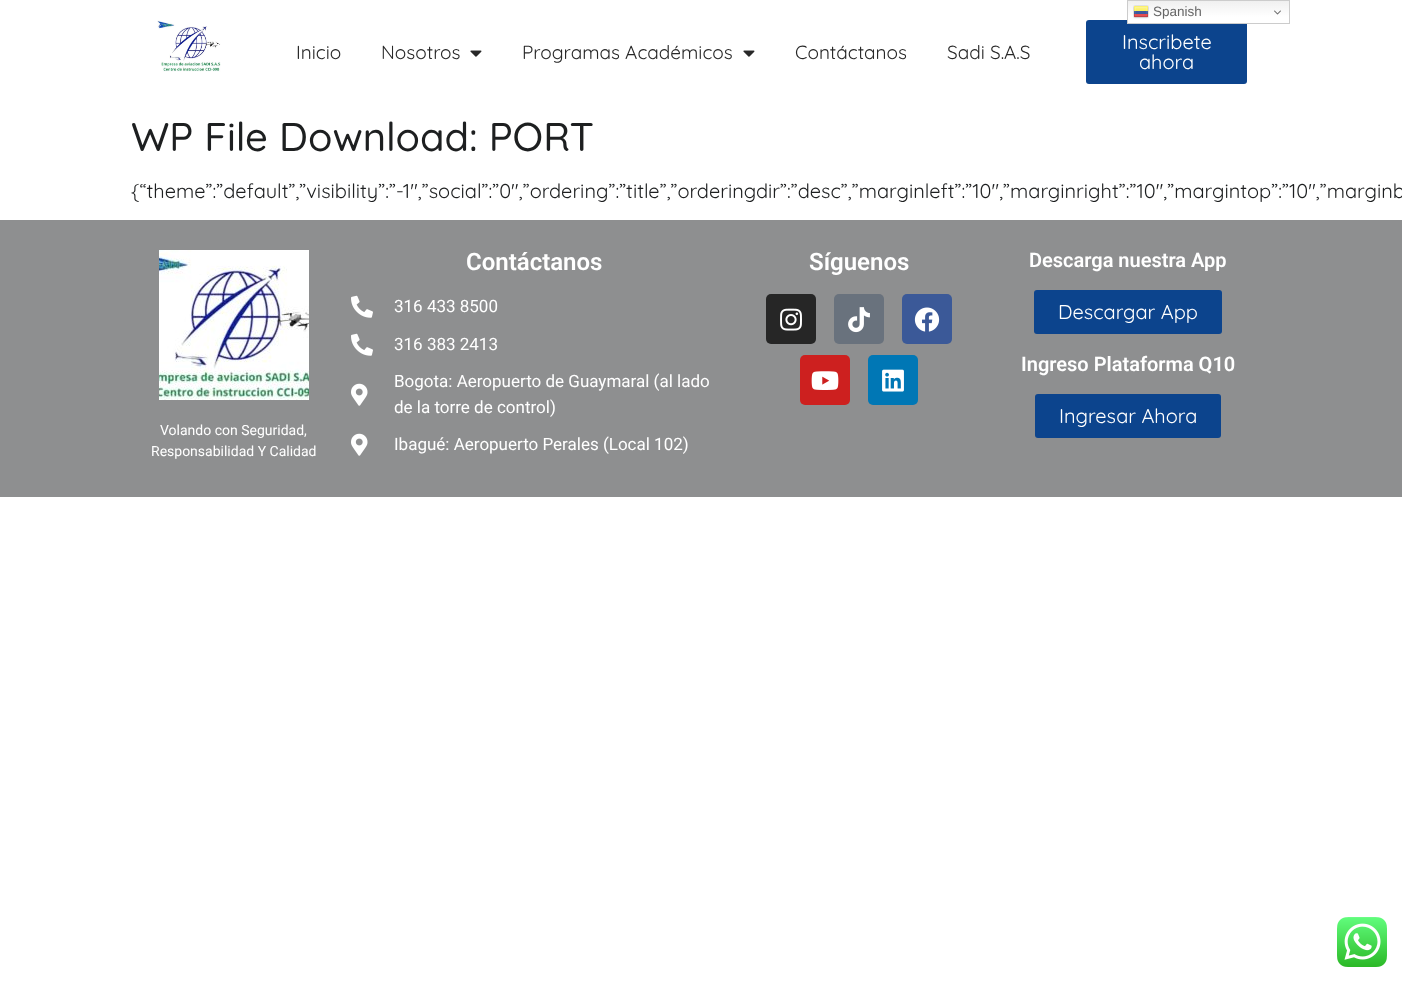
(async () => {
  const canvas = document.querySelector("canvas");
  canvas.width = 1402;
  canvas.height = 982;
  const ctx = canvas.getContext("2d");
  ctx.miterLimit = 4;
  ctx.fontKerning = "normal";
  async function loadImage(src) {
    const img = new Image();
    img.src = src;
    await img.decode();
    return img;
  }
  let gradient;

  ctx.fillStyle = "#ffffff";
  ctx.fillRect(0, 0, 1402, 982);
  ctx.fillStyle = "#0c448d";
  ctx.beginPath();
  ctx.roundRect(1086, 20, 161, 64, 3);
  ctx.fill();
  gradient = ctx.createLinearGradient(1209, 0, 1209, 24);
  gradient.addColorStop(0, "#efefef");
  gradient.addColorStop(0.7, "#ffffff");
  ctx.fillStyle = gradient;
  ctx.fillRect(1128, 1, 161, 22);
  ctx.strokeStyle = "#cccccc";
  ctx.strokeRect(1127.5, 0.5, 162, 23);
  ctx.drawImage(await loadImage("img/1.png"), 1133, 5, 16, 14);
  ctx.drawImage(await loadImage("img/2.png"), 1274, 10, 7, 5);
  ctx.drawImage(await loadImage("img/3.png"), 157, 20, 64, 52);
  ctx.drawImage(await loadImage("img/4.png"), 470, 50, 12, 7);
  ctx.drawImage(await loadImage("img/4.png"), 743, 50, 12, 7);
  ctx.fillStyle = "#8e8f90";
  ctx.fillRect(0, 220, 1402, 277);
  ctx.drawImage(await loadImage("img/5.png"), 351, 295, 22, 23);
  ctx.drawImage(await loadImage("img/5.png"), 351, 333, 22, 23);
  ctx.drawImage(await loadImage("img/6.png"), 351, 383, 17, 23);
  ctx.drawImage(await loadImage("img/6.png"), 351, 433, 17, 23);
  ctx.fillStyle = "#262626";
  ctx.beginPath();
  ctx.roundRect(766, 294, 50, 50, 5);
  ctx.fill();
  ctx.drawImage(await loadImage("img/7.png"), 780, 308, 22, 23);
  ctx.fillStyle = "#69727d";
  ctx.beginPath();
  ctx.roundRect(834, 294, 50, 50, 5);
  ctx.fill();
  ctx.drawImage(await loadImage("img/8.png"), 848, 307, 22, 26);
  ctx.fillStyle = "#3b5998";
  ctx.beginPath();
  ctx.roundRect(902, 294, 50, 50, 5);
  ctx.fill();
  ctx.drawImage(await loadImage("img/9.png"), 914, 307, 26, 25);
  ctx.fillStyle = "#cd201f";
  ctx.beginPath();
  ctx.roundRect(800, 355, 50, 50, 5);
  ctx.fill();
  ctx.drawImage(await loadImage("img/10.png"), 811, 371, 28, 19);
  ctx.fillStyle = "#0077b5";
  ctx.beginPath();
  ctx.roundRect(868, 355, 50, 50, 5);
  ctx.fill();
  ctx.drawImage(await loadImage("img/11.png"), 882, 369, 22, 23);
  ctx.fillStyle = "#0c448d";
  ctx.beginPath();
  ctx.roundRect(1034, 290, 188, 44, 3);
  ctx.fill();
  ctx.beginPath();
  ctx.roundRect(1035, 394, 186, 44, 3);
  ctx.fill();
  ctx.drawImage(await loadImage("img/12.png"), 159, 250, 150, 150);
  ctx.drawImage(await loadImage("img/13.png"), 1337, 917, 50, 50);
  ctx.font = "13.5px Liberation Sans";
  ctx.fillStyle = "#666666";
  ctx.fillText("Spanish", 1153, 16);
  ctx.font = "19px Quicksand";
  ctx.fillStyle = "#282828";
  for (const [text, x, y] of [
    ["Inicio", 296, 59],
    ["Nosotros", 381, 59],
    ["Programas Académicos", 522, 59],
    ["Contáctanos", 795, 59],
    ["Sadi S.A.S", 947, 59],
  ]) {
    ctx.fillText(text, x, y);
  }
  ctx.font = "20px Quicksand";
  ctx.fillStyle = "#ffffff";
  ctx.fillText("Inscribete", 1122, 49);
  ctx.fillText("ahora", 1139, 69);
  ctx.font = "500 40px Quicksand";
  ctx.fillStyle = "#1d1f20";
  ctx.fillText("WP File Download: PORT", 131, 151);
  ctx.font = "20px Quicksand";
  ctx.fillText("{“theme”:”default”,”visibility”:”-1″,”social”:”0″,”ordering”:”title”,”orderingdir”:”desc”,”marginleft”:”10″,”marginright”:”10″,”margintop”:”10″,”marginb", 131, 198);
  ctx.font = "600 24px Roboto";
  ctx.fillStyle = "#ffffff";
  ctx.fillText("Contáctanos", 466, 270);
  ctx.font = "17px Roboto";
  for (const [text, x, y] of [
    ["316 433 8500", 394, 312],
    ["316 383 2413", 394, 350],
    ["Bogota: Aeropuerto de Guaymaral (al lado", 394, 387],
    ["de la torre de control)", 394, 413],
    ["Ibagué: Aeropuerto Perales (Local 102)", 394, 450],
  ]) {
    ctx.fillText(text, x, y);
  }
  ctx.font = "600 24px Roboto";
  ctx.fillText("Síguenos", 809, 270);
  ctx.font = "600 20px Roboto";
  ctx.fillText("Descarga nuestra App", 1029, 267);
  ctx.font = "20px Quicksand";
  ctx.fillText("Descargar App", 1058, 319);
  ctx.font = "600 20px Roboto";
  ctx.fillText("Ingreso Plataforma Q10", 1021, 371);
  ctx.font = "20px Quicksand";
  ctx.fillText("Ingresar Ahora", 1059, 423);
  ctx.font = "14px Roboto";
  ctx.fillText("Volando con Seguridad,", 160, 435);
  ctx.fillText("Responsabilidad Y Calidad", 151, 456);
})();
